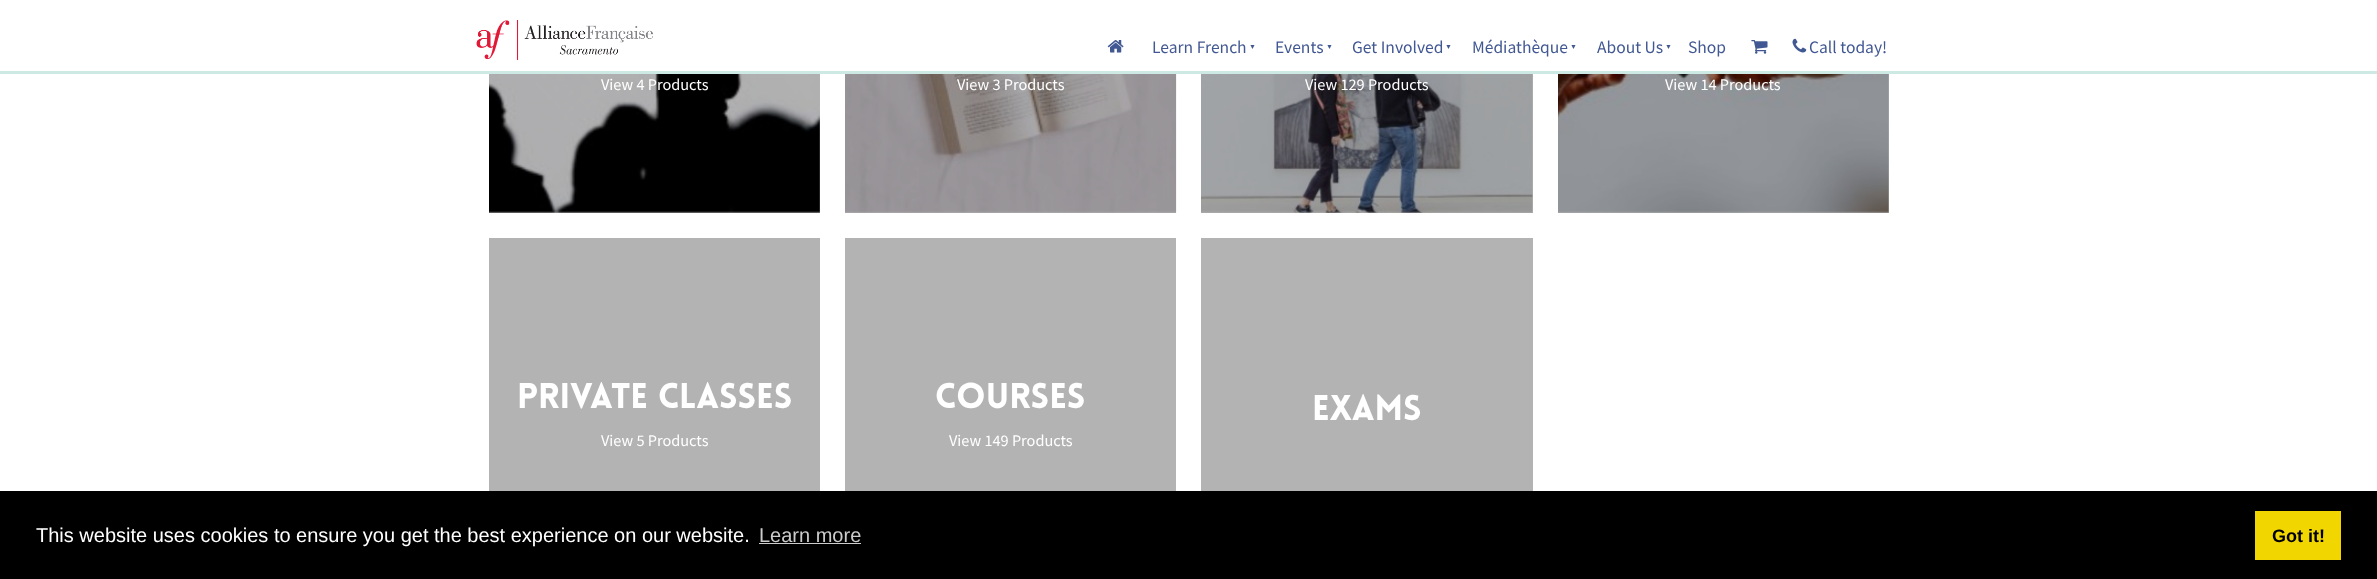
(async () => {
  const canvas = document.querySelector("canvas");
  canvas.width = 2377;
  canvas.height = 579;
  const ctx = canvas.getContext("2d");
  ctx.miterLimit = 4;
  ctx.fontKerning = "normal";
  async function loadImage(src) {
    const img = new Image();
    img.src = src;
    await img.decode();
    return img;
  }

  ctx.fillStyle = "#ffffff";
  ctx.fillRect(0, 0, 2377, 579);
  for (const [x, y, w, h, color] of [
    [1558, 74, 331, 139, "#b3b3b3"],
    [1201, 74, 332, 139, "#b3b3b3"],
    [845, 211, 331, 2, "#b3b3b3"],
    [489, 74, 331, 139, "#b3b3b3"],
    [0, 71, 2377, 3, "#cee8e3"],
  ]) {
    ctx.fillStyle = color;
    ctx.fillRect(x, y, w, h);
  }
  ctx.drawImage(await loadImage("img/1.png"), 476, 20, 177, 40);
  ctx.drawImage(await loadImage("img/2.png"), 1107, 40, 17, 13);
  ctx.drawImage(await loadImage("img/3.png"), 1751, 40, 17, 14);
  ctx.drawImage(await loadImage("img/4.png"), 1792, 38, 15, 15);
  ctx.drawImage(await loadImage("img/5.png"), 489, 74, 331, 139);
  ctx.drawImage(await loadImage("img/6.png"), 845, 74, 332, 139);
  ctx.drawImage(await loadImage("img/7.png"), 1201, 74, 332, 139);
  ctx.drawImage(await loadImage("img/8.png"), 1558, 74, 331, 139);
  for (const [x, y, w, h, color] of [
    [489, 238, 331, 253, "#b3b3b3"],
    [845, 238, 331, 253, "#b3b3b3"],
    [1201, 238, 332, 253, "#b3b3b3"],
    [0, 491, 2377, 88, "#000000"],
    [759, 543, 102, 1, "#cccccc"],
    [2255, 511, 86, 49, "#f1d600"],
  ]) {
    ctx.fillStyle = color;
    ctx.fillRect(x, y, w, h);
  }
  ctx.font = "17.5px Source Sans Pro";
  ctx.fillStyle = "#425893";
  ctx.fillText("Learn French", 1152, 53);
  ctx.font = "7px Liberation Sans";
  ctx.fillText("▼", 1249, 49);
  ctx.font = "17.5px Source Sans Pro";
  ctx.fillText("Events", 1275, 53);
  ctx.font = "7px Liberation Sans";
  ctx.fillText("▼", 1326, 49);
  ctx.font = "17.5px Source Sans Pro";
  ctx.fillText("Get Involved", 1352, 53);
  ctx.font = "7px Liberation Sans";
  ctx.fillText("▼", 1445, 49);
  ctx.font = "17.5px Source Sans Pro";
  ctx.fillText("Médiathèque", 1472, 53);
  ctx.font = "7px Liberation Sans";
  ctx.fillText("▼", 1570, 49);
  ctx.font = "17.5px Source Sans Pro";
  ctx.fillText("About Us", 1597, 53);
  ctx.font = "7px Liberation Sans";
  ctx.fillText("▼", 1665, 49);
  ctx.font = "17.5px Source Sans Pro";
  ctx.fillText("Shop", 1688, 53);
  ctx.fillText("Call today!", 1809, 53);
  ctx.font = "16.25px Source Sans Pro";
  ctx.fillStyle = "#ffffff";
  for (const [text, x, y] of [
    ["View 4 Products", 601, 90],
    ["View 3 Products", 957, 90],
    ["View 129 Products", 1305, 90],
    ["View 14 Products", 1665, 90],
  ]) {
    ctx.fillText(text, x, y);
  }
  ctx.font = "900 35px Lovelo";
  ctx.fillText("Private classes", 517, 408);
  ctx.font = "16.25px Source Sans Pro";
  ctx.fillText("View 5 Products", 601, 446);
  ctx.font = "900 35px Lovelo";
  ctx.fillText("Courses", 935, 408);
  ctx.font = "16.25px Source Sans Pro";
  ctx.fillText("View 149 Products", 949, 446);
  ctx.font = "900 35px Lovelo";
  ctx.fillText("Exams", 1312, 420);
  ctx.font = "20px Liberation Sans";
  ctx.fillText("This website uses cookies to ensure you get the best experience on our website.", 36, 542);
  ctx.fillStyle = "#cccccc";
  ctx.fillText("Learn more", 759, 542);
  ctx.font = "bold 18px Liberation Sans";
  ctx.fillStyle = "#000000";
  ctx.fillText("Got it!", 2272, 542);
})();
